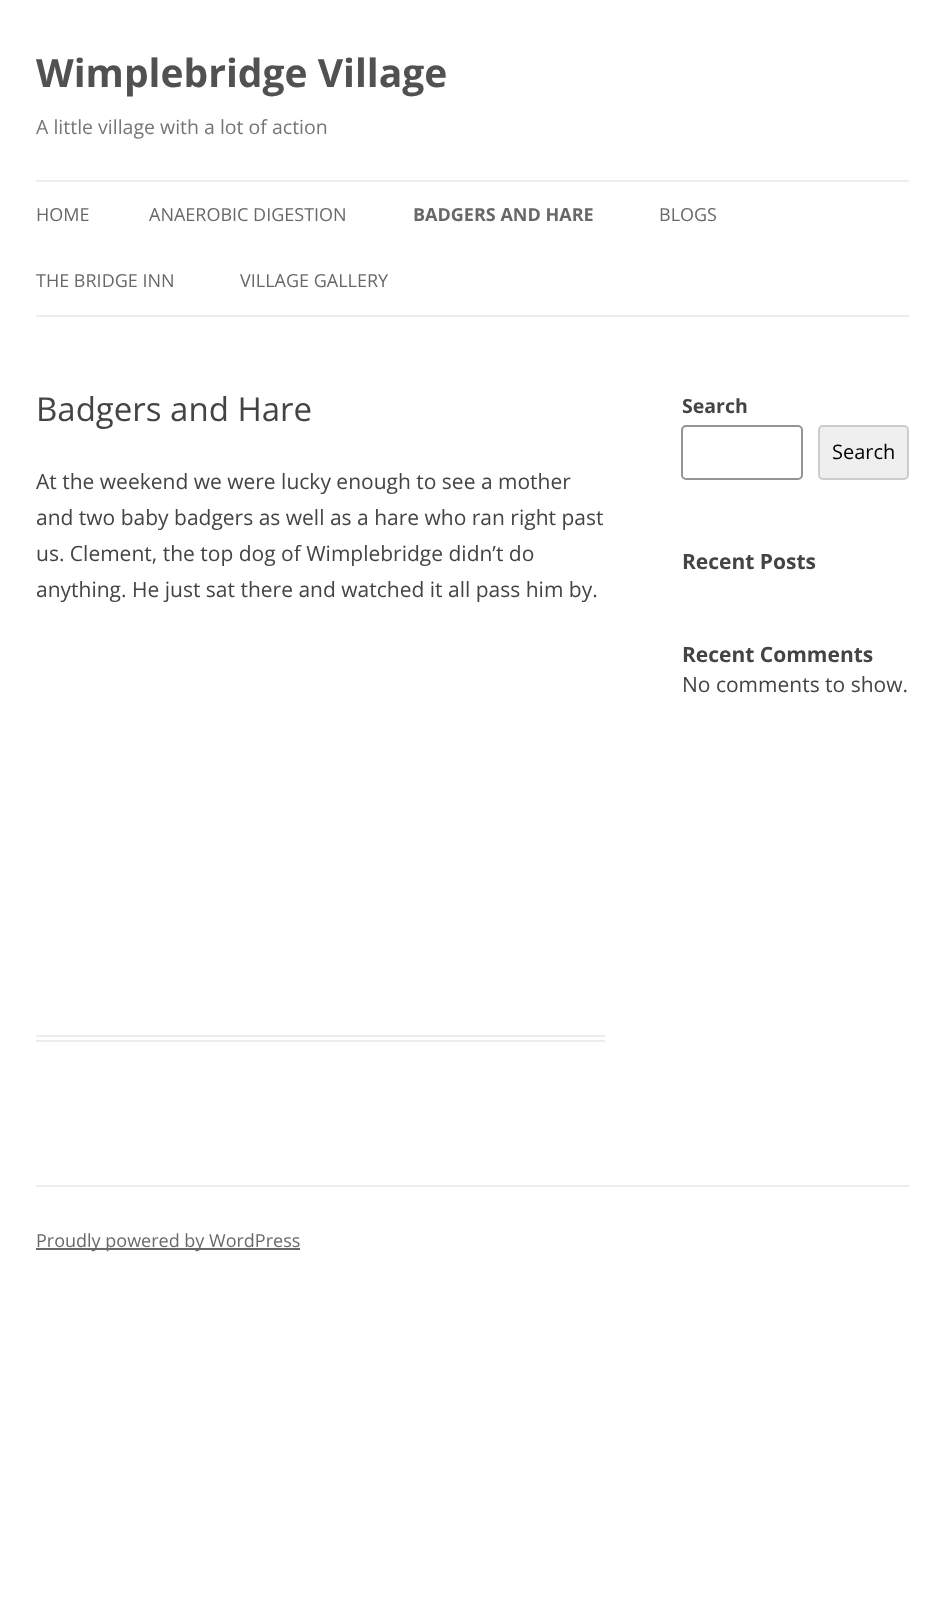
(async () => {
  const canvas = document.querySelector("canvas");
  canvas.width = 945;
  canvas.height = 1613;
  const ctx = canvas.getContext("2d");
  ctx.miterLimit = 4;
  ctx.fontKerning = "normal";

  ctx.fillStyle = "#ffffff";
  ctx.fillRect(0, 0, 945, 1613);
  for (const [x, y, w, h, color] of [
    [36, 180, 873, 2, "#ededed"],
    [36, 315, 873, 2, "#ededed"],
    [36, 1035, 569, 2, "#ededed"],
    [36, 1040, 569, 2, "#ededed"],
  ]) {
    ctx.fillStyle = color;
    ctx.fillRect(x, y, w, h);
  }
  ctx.beginPath();
  ctx.roundRect(682, 426, 120, 53, 4);
  ctx.strokeStyle = "#949494";
  ctx.lineWidth = 2;
  ctx.stroke();
  ctx.fillStyle = "#efefef";
  ctx.beginPath();
  ctx.roundRect(819, 426, 89, 53, 4);
  ctx.fill();
  ctx.strokeStyle = "#cccccc";
  ctx.stroke();
  ctx.fillStyle = "#ededed";
  ctx.fillRect(36, 1185, 873, 2);
  ctx.fillStyle = "#686868";
  ctx.fillRect(36, 1248, 264, 2);
  ctx.font = "bold 39px Open Sans";
  ctx.fillStyle = "#515151";
  ctx.fillText("Wimplebridge Village", 36, 87);
  ctx.font = "19.5px Open Sans";
  ctx.fillStyle = "#757575";
  ctx.fillText("A little village with a lot of action", 36, 134);
  ctx.font = "18px Open Sans";
  ctx.fillStyle = "#686868";
  ctx.fillText("HOME", 36, 221);
  ctx.fillText("ANAEROBIC DIGESTION", 149, 221);
  ctx.font = "bold 18px Open Sans";
  ctx.fillText("BADGERS AND HARE", 413, 221);
  ctx.font = "18px Open Sans";
  for (const [text, x, y] of [
    ["BLOGS", 659, 221],
    ["THE BRIDGE INN", 36, 287],
    ["VILLAGE GALLERY", 240, 287],
  ]) {
    ctx.fillText(text, x, y);
  }
  ctx.font = "33px Open Sans";
  ctx.fillStyle = "#444444";
  ctx.fillText("Badgers and Hare", 36, 421);
  ctx.font = "21px Open Sans";
  for (const [text, x, y] of [
    ["At the weekend we were lucky enough to see a mother", 36, 489],
    ["and two baby badgers as well as a hare who ran right past", 36, 525],
    ["us. Clement, the top dog of Wimplebridge didn’t do", 36, 561],
    ["anything. He just sat there and watched it all pass him by.", 36, 597],
  ]) {
    ctx.fillText(text, x, y);
  }
  ctx.font = "bold 19.5px Open Sans";
  ctx.fillText("Search", 682, 413);
  ctx.font = "20px Open Sans";
  ctx.fillStyle = "#000000";
  ctx.fillText("Search", 832, 459);
  ctx.font = "bold 21px Open Sans";
  ctx.fillStyle = "#444444";
  ctx.fillText("Recent Posts", 682, 569);
  ctx.fillText("Recent Comments", 682, 662);
  ctx.font = "21px Open Sans";
  ctx.fillText("No comments to show.", 682, 692);
  ctx.font = "18px Open Sans";
  ctx.fillStyle = "#686868";
  ctx.fillText("Proudly powered by WordPress", 36, 1247);
})();
